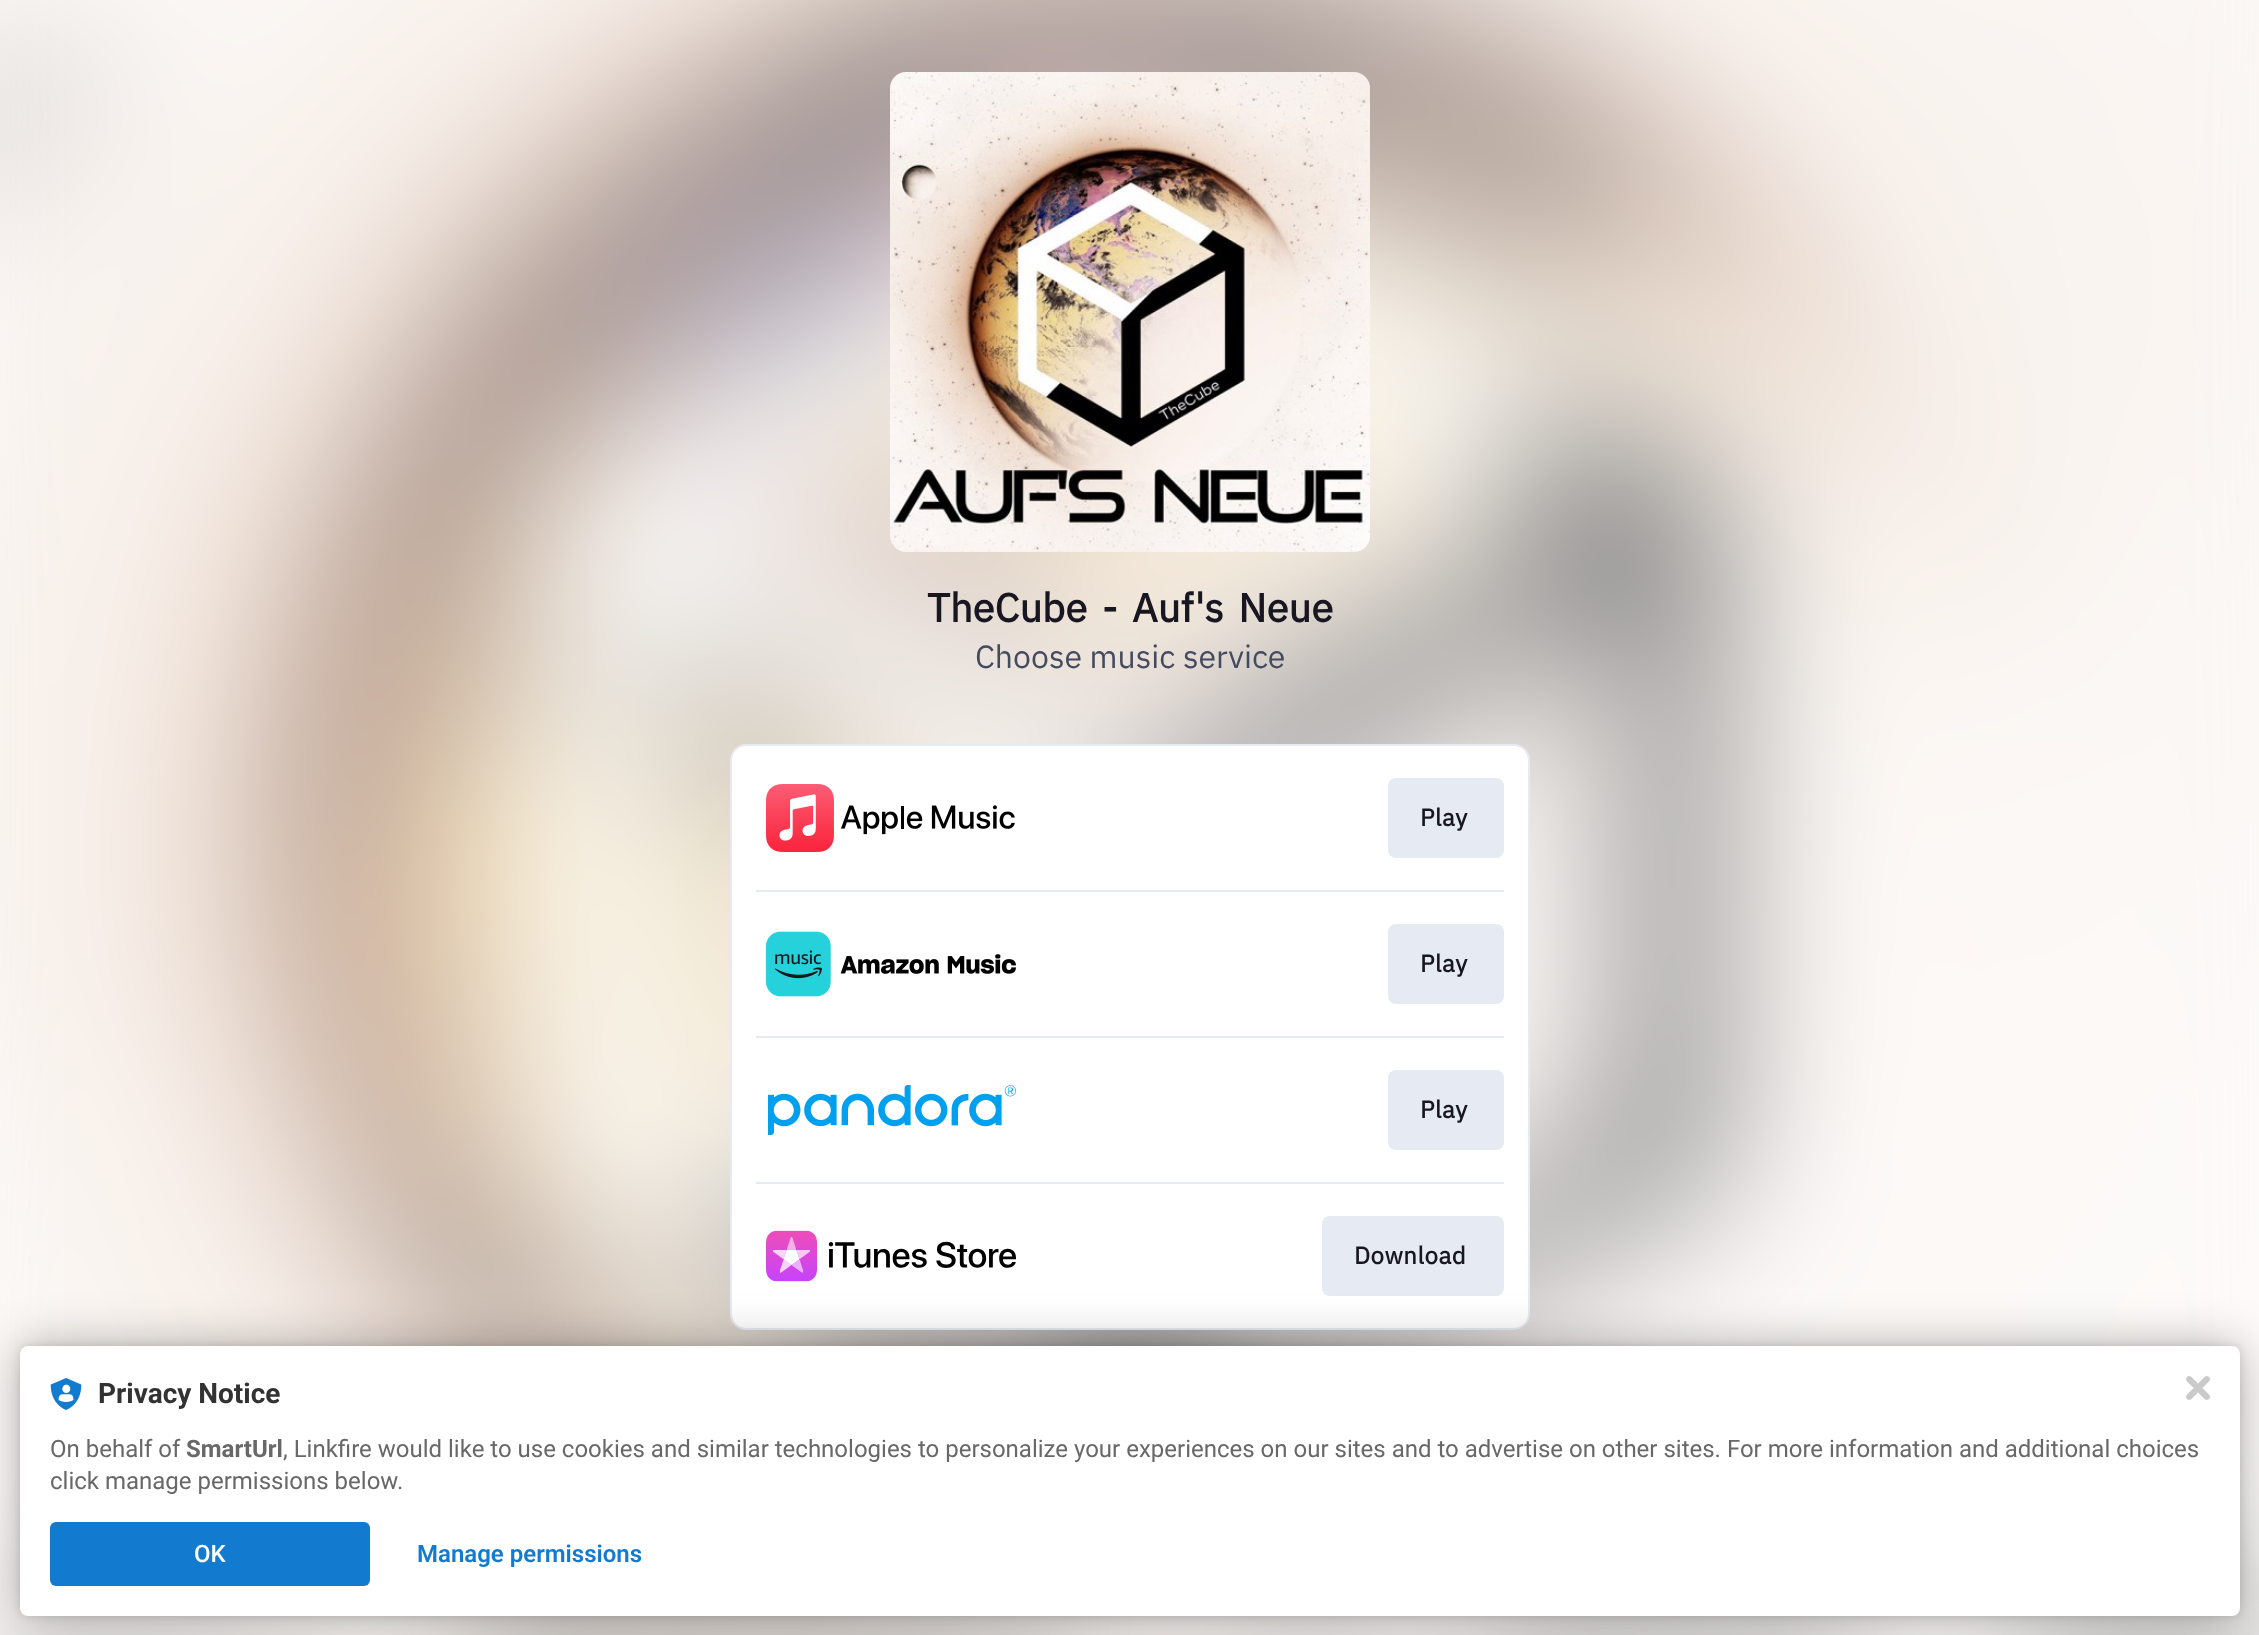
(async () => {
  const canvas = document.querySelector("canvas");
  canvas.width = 2259;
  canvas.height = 1635;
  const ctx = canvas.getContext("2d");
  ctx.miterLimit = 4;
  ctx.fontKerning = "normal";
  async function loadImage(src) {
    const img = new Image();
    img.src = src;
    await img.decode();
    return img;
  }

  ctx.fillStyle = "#ffffff";
  ctx.fillRect(0, 0, 2259, 1635);
  ctx.drawImage(await loadImage("img/1.png"), 0, 0, 2259, 1635);
  ctx.drawImage(await loadImage("img/2.png"), 890, 72, 480, 480);
  ctx.beginPath();
  ctx.roundRect(731, 745, 798, 584, 15);
  ctx.strokeStyle = "#e6eaf2";
  ctx.lineWidth = 2;
  ctx.stroke();
  ctx.beginPath();
  ctx.roundRect(732, 746, 796, 582, 14);
  ctx.fill();
  ctx.drawImage(await loadImage("img/3.png"), 766, 784, 249, 68);
  ctx.fillStyle = "#e6eaf2";
  ctx.beginPath();
  ctx.roundRect(1388, 778, 116, 80, 8);
  ctx.fill();
  ctx.fillRect(756, 890, 748, 2);
  ctx.drawImage(await loadImage("img/4.png"), 766, 931, 250, 66);
  ctx.beginPath();
  ctx.roundRect(1388, 924, 116, 80, 8);
  ctx.fill();
  ctx.fillRect(756, 1036, 748, 2);
  ctx.drawImage(await loadImage("img/5.png"), 768, 1085, 248, 50);
  ctx.beginPath();
  ctx.roundRect(1388, 1070, 116, 80, 8);
  ctx.fill();
  ctx.fillRect(756, 1182, 748, 2);
  ctx.drawImage(await loadImage("img/6.png"), 766, 1230, 250, 52);
  ctx.beginPath();
  ctx.roundRect(1322, 1216, 182, 80, 8);
  ctx.fill();
  ctx.fillStyle = "rgba(0, 0, 0, 0.12)";
  ctx.filter = "blur(4px)";
  ctx.beginPath();
  ctx.roundRect(20, 1346, 2220, 270, 8);
  ctx.fill();
  ctx.filter = "none";
  ctx.fillStyle = "rgba(0, 0, 0, 0.3)";
  ctx.filter = "blur(24px)";
  ctx.beginPath();
  ctx.roundRect(20, 1346, 2220, 270, 8);
  ctx.fill();
  ctx.filter = "none";
  ctx.fillStyle = "#ffffff";
  ctx.beginPath();
  ctx.roundRect(20, 1346, 2220, 270, 8);
  ctx.fill();
  ctx.drawImage(await loadImage("img/7.png"), 2186, 1376, 24, 24);
  ctx.drawImage(await loadImage("img/8.png"), 50, 1378, 32, 32);
  ctx.fillStyle = "#137bcf";
  ctx.beginPath();
  ctx.roundRect(50, 1522, 320, 64, 6);
  ctx.fill();
  ctx.wordSpacing = "5px";
  ctx.font = "bold 40px IBM Plex Sans";
  ctx.fillStyle = "#181721";
  ctx.fillText("TheCube - Auf's Neue", 927, 622);
  ctx.wordSpacing = "0px";
  ctx.font = "32px IBM Plex Sans";
  ctx.fillStyle = "#454b5f";
  ctx.fillText("Choose music service", 975, 668);
  ctx.letterSpacing = "0.5px";
  ctx.font = "bold 24px IBM Plex Sans";
  ctx.fillStyle = "#181721";
  for (const [text, x, y] of [
    ["Play", 1420, 826],
    ["Play", 1420, 972],
    ["Play", 1420, 1118],
    ["Download", 1354, 1264],
  ]) {
    ctx.fillText(text, x, y);
  }
  ctx.letterSpacing = "0px";
  ctx.font = "bold 28px Roboto";
  ctx.fillStyle = "#323232";
  ctx.fillText("Privacy Notice", 98, 1403);
  ctx.font = "24px Roboto";
  ctx.fillStyle = "#686868";
  ctx.fillText("On behalf of", 50, 1457);
  ctx.font = "bold 24px Roboto";
  ctx.fillText("SmartUrl", 186, 1457);
  ctx.font = "24px Roboto";
  ctx.fillText(", Linkfire would like to use cookies and similar technologies to personalize your experiences on our sites and to advertise on other sites. For more information and additional choices", 283, 1457);
  ctx.fillText("click manage permissions below.", 50, 1489);
  ctx.font = "500 24px Roboto";
  ctx.fillStyle = "#ffffff";
  ctx.fillText("OK", 194, 1562);
  ctx.font = "600 24px Roboto";
  ctx.fillStyle = "#137bcf";
  ctx.fillText("Manage permissions", 417, 1562);
})();
